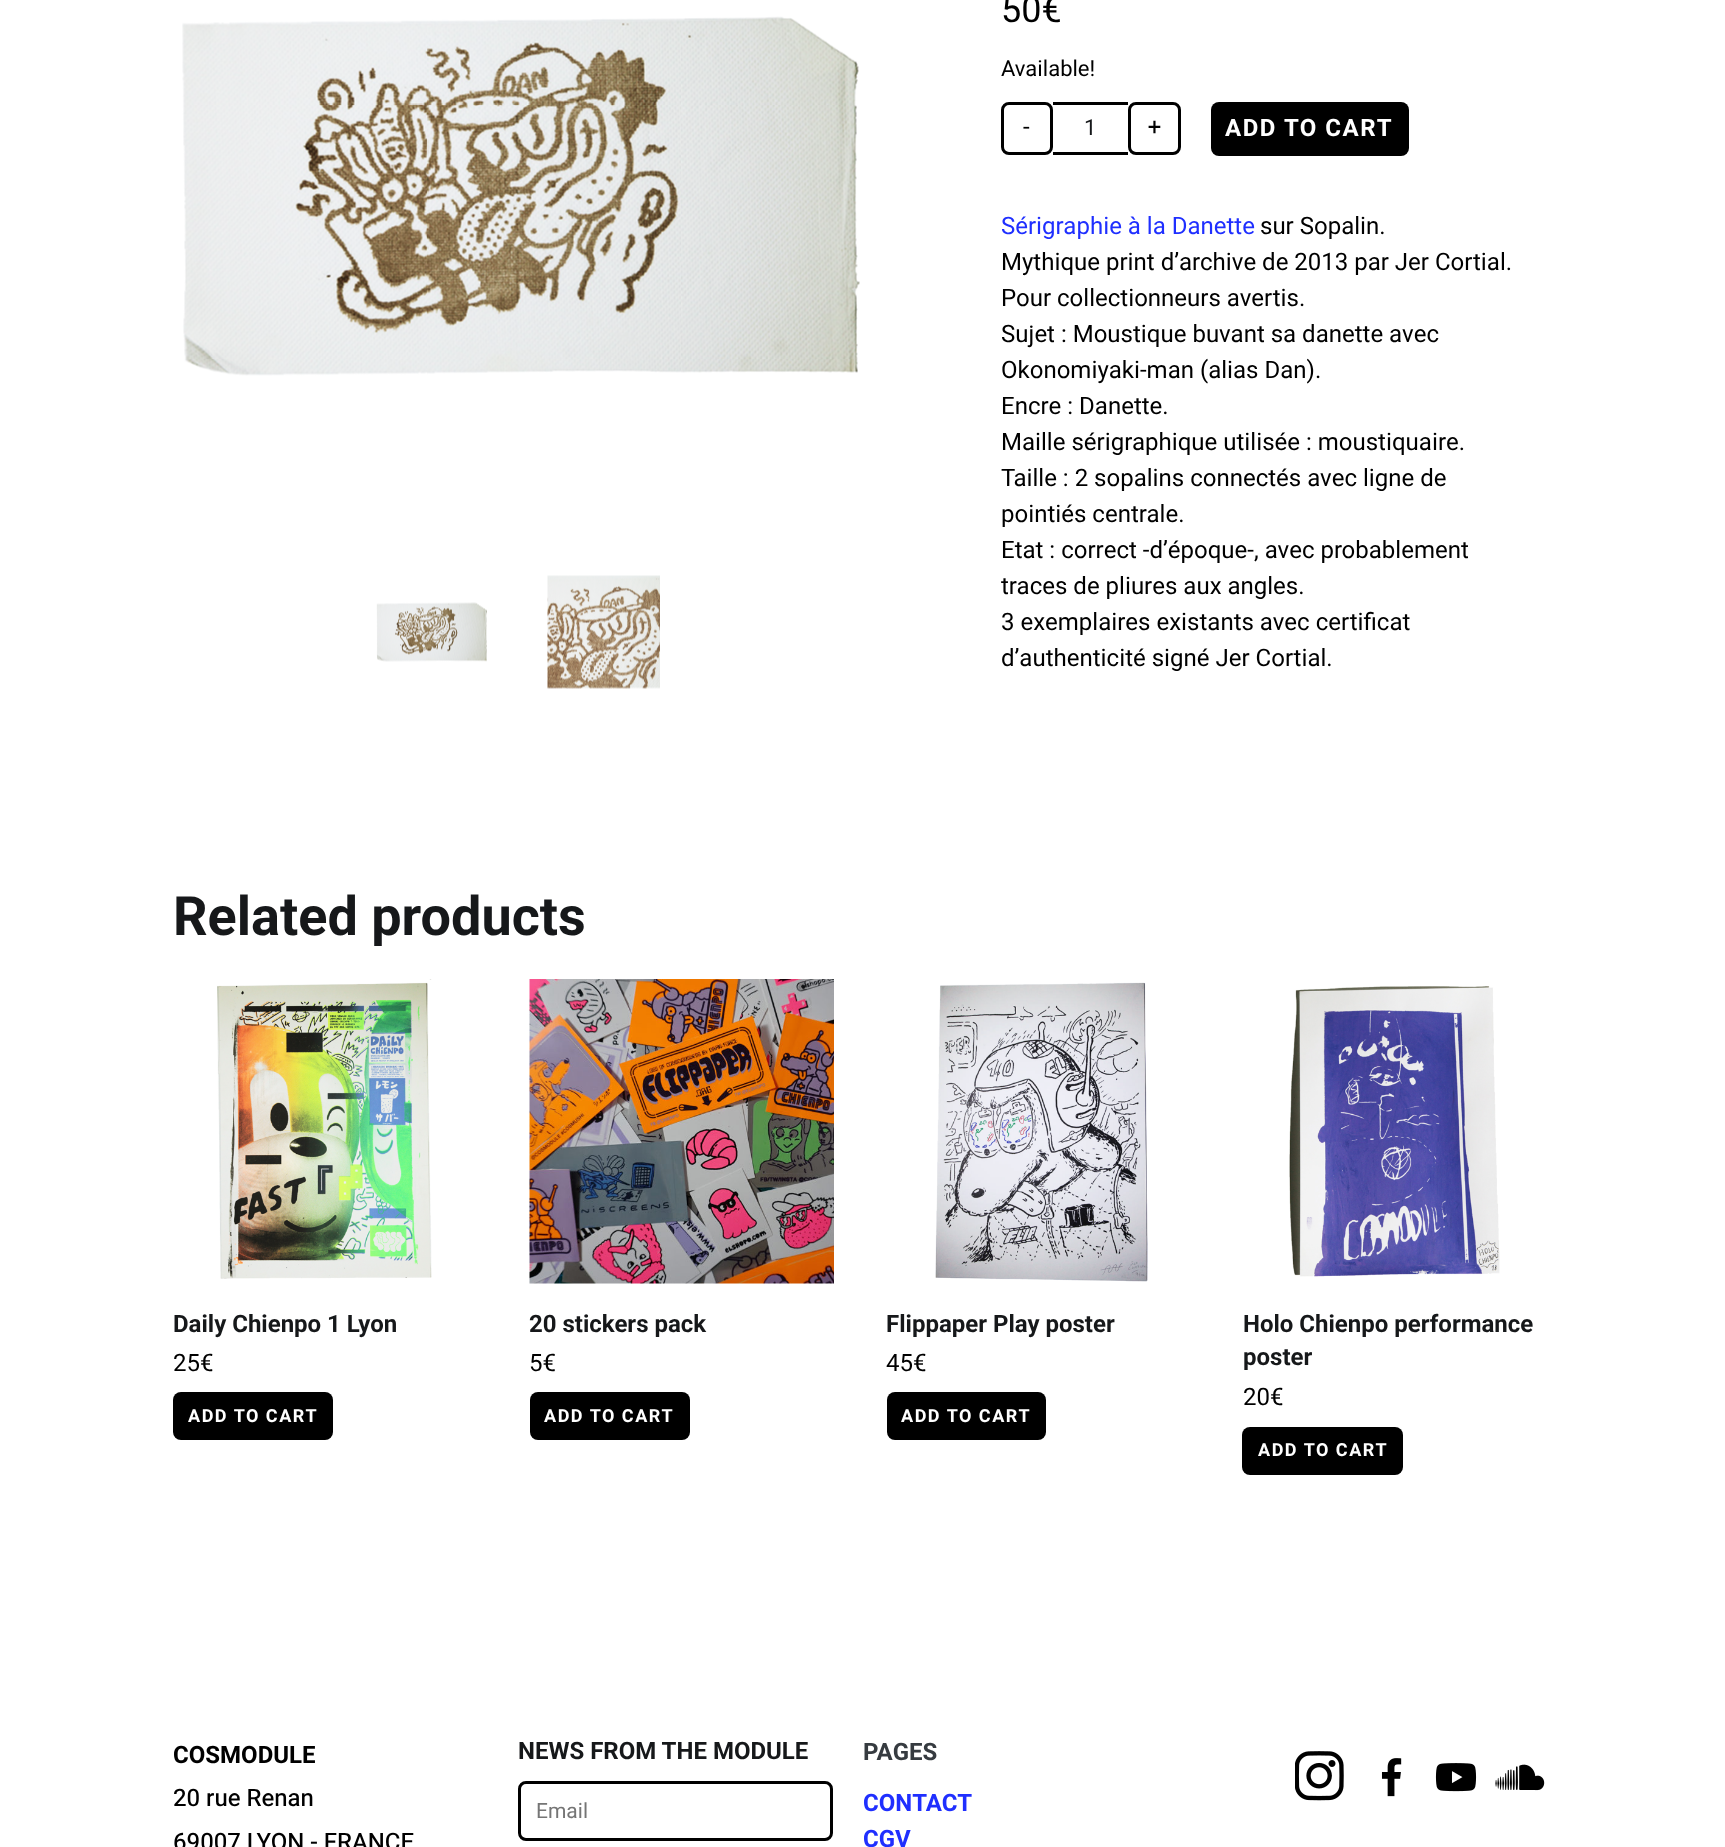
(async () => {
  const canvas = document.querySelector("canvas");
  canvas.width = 1725;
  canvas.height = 1847;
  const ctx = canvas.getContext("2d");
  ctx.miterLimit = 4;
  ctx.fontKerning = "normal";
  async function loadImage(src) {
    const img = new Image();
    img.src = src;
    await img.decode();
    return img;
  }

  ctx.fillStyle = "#ffffff";
  ctx.fillRect(0, 0, 1725, 1847);
  ctx.drawImage(await loadImage("img/1.png"), 182, 16, 678, 360);
  ctx.drawImage(await loadImage("img/2.png"), 376, 602, 111, 60);
  ctx.drawImage(await loadImage("img/3.png"), 547, 575, 113, 114);
  ctx.beginPath();
  ctx.roundRect(1002.5, 103.5, 49, 50, 6.5);
  ctx.strokeStyle = "#000000";
  ctx.lineWidth = 3;
  ctx.stroke();
  ctx.fillStyle = "#000000";
  ctx.fillRect(1053, 102, 75, 3);
  ctx.fillRect(1053, 152, 75, 3);
  ctx.beginPath();
  ctx.roundRect(1129.5, 103.5, 50, 50, 6.5);
  ctx.stroke();
  ctx.beginPath();
  ctx.roundRect(1211, 102, 198, 54, 8);
  ctx.fill();
  ctx.drawImage(await loadImage("img/4.png"), 217, 979, 215, 300);
  ctx.beginPath();
  ctx.roundRect(173, 1392, 160, 48, 8);
  ctx.fill();
  ctx.drawImage(await loadImage("img/5.png"), 529, 979, 305, 305);
  ctx.beginPath();
  ctx.roundRect(530, 1392, 160, 48, 8);
  ctx.fill();
  ctx.drawImage(await loadImage("img/6.png"), 935, 982, 213, 300);
  ctx.beginPath();
  ctx.roundRect(887, 1392, 159, 48, 8);
  ctx.fill();
  ctx.drawImage(await loadImage("img/7.png"), 1289, 986, 211, 291);
  ctx.beginPath();
  ctx.roundRect(1242, 1427, 161, 48, 8);
  ctx.fill();
  ctx.beginPath();
  ctx.roundRect(519.5, 1782.5, 312, 57, 6.5);
  ctx.stroke();
  ctx.drawImage(await loadImage("img/8.png"), 1295, 1751, 49, 50);
  ctx.drawImage(await loadImage("img/9.png"), 1381, 1758, 21, 39);
  ctx.drawImage(await loadImage("img/10.png"), 1435, 1763, 42, 29);
  ctx.drawImage(await loadImage("img/11.png"), 1495, 1764, 50, 27);
  ctx.font = "36px Heebo";
  ctx.fillText("50€", 1001, 22);
  ctx.font = "22px Heebo";
  ctx.fillText("Available!", 1001, 76);
  ctx.font = "24px Heebo";
  ctx.fillText("-", 1023, 135);
  ctx.font = "22px Roboto";
  ctx.fillStyle = "#16181a";
  ctx.fillText("1", 1084, 135);
  ctx.font = "24px Heebo";
  ctx.fillStyle = "#000000";
  ctx.fillText("+", 1148, 135);
  ctx.letterSpacing = "1.5px";
  ctx.font = "bold 24px Heebo";
  ctx.fillStyle = "#ffffff";
  ctx.fillText("ADD TO CART", 1225, 136);
  ctx.letterSpacing = "0px";
  ctx.font = "24px Heebo";
  ctx.fillStyle = "#1f2fff";
  ctx.fillText("Sérigraphie à la Danette", 1001, 234);
  ctx.fillStyle = "#000000";
  for (const [text, x, y] of [
    ["sur Sopalin.", 1260, 234],
    ["Mythique print d’archive de 2013 par Jer Cortial.", 1001, 270],
    ["Pour collectionneurs avertis.", 1001, 306],
    ["Sujet : Moustique buvant sa danette avec", 1001, 342],
    ["Okonomiyaki-man (alias Dan).", 1001, 378],
    ["Encre : Danette.", 1001, 414],
    ["Maille sérigraphique utilisée : moustiquaire.", 1001, 450],
    ["Taille : 2 sopalins connectés avec ligne de", 1001, 486],
    ["pointiés centrale.", 1001, 522],
    ["Etat : correct -d’époque-, avec probablement", 1001, 558],
    ["traces de pliures aux angles.", 1001, 594],
    ["3 exemplaires existants avec certificat", 1001, 630],
    ["d’authenticité signé Jer Cortial.", 1001, 666],
  ]) {
    ctx.fillText(text, x, y);
  }
  ctx.font = "bold 54px Roboto";
  ctx.fillStyle = "#16181a";
  ctx.fillText("Related products", 173, 935);
  ctx.font = "bold 24px Roboto";
  ctx.fillText("Daily Chienpo 1 Lyon", 173, 1332);
  ctx.font = "24px Roboto";
  ctx.fillStyle = "#000000";
  ctx.fillText("25€", 173, 1371);
  ctx.letterSpacing = "1.5px";
  ctx.font = "bold 18px Heebo";
  ctx.fillStyle = "#ffffff";
  ctx.fillText("ADD TO CART", 188, 1422);
  ctx.letterSpacing = "0px";
  ctx.font = "bold 24px Roboto";
  ctx.fillStyle = "#16181a";
  ctx.fillText("20 stickers pack", 529, 1332);
  ctx.font = "24px Roboto";
  ctx.fillStyle = "#000000";
  ctx.fillText("5€", 529, 1371);
  ctx.letterSpacing = "1.5px";
  ctx.font = "bold 18px Heebo";
  ctx.fillStyle = "#ffffff";
  ctx.fillText("ADD TO CART", 544, 1422);
  ctx.letterSpacing = "0px";
  ctx.font = "bold 24px Roboto";
  ctx.fillStyle = "#16181a";
  ctx.fillText("Flippaper Play poster", 886, 1332);
  ctx.font = "24px Roboto";
  ctx.fillStyle = "#000000";
  ctx.fillText("45€", 886, 1371);
  ctx.letterSpacing = "1.5px";
  ctx.font = "bold 18px Heebo";
  ctx.fillStyle = "#ffffff";
  ctx.fillText("ADD TO CART", 901, 1422);
  ctx.letterSpacing = "0px";
  ctx.font = "bold 24px Roboto";
  ctx.fillStyle = "#16181a";
  ctx.fillText("Holo Chienpo performance", 1243, 1332);
  ctx.fillText("poster", 1243, 1365);
  ctx.font = "24px Roboto";
  ctx.fillStyle = "#000000";
  ctx.fillText("20€", 1243, 1405);
  ctx.letterSpacing = "1.5px";
  ctx.font = "bold 18px Heebo";
  ctx.fillStyle = "#ffffff";
  ctx.fillText("ADD TO CART", 1258, 1456);
  ctx.letterSpacing = "0px";
  ctx.font = "bold 24px Heebo";
  ctx.fillStyle = "#000000";
  ctx.fillText("COSMODULE", 173, 1763);
  ctx.font = "500 24px Heebo";
  ctx.fillText("20 rue Renan", 173, 1806);
  ctx.fillText("69007 LYON - FRANCE", 173, 1850);
  ctx.font = "bold 24px Roboto";
  ctx.fillStyle = "#16181a";
  ctx.fillText("NEWS FROM THE MODULE", 518, 1759);
  ctx.font = "21px Roboto";
  ctx.fillStyle = "#757575";
  ctx.fillText("Email", 536, 1818);
  ctx.font = "bold 24px Heebo";
  ctx.fillStyle = "#363b40";
  ctx.fillText("PAGES", 863, 1760);
  ctx.fillStyle = "#1f2fff";
  ctx.fillText("CONTACT", 863, 1811);
  ctx.fillText("CGV", 863, 1847);
})();
